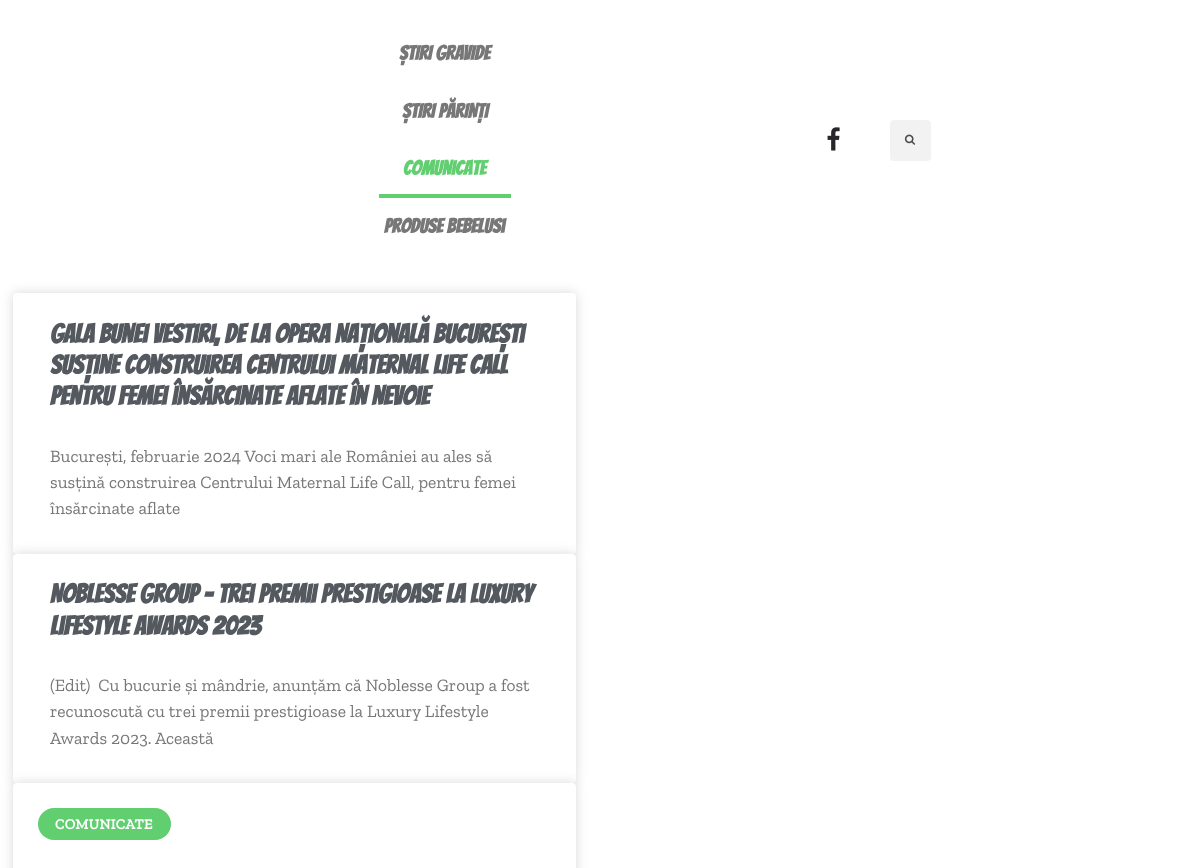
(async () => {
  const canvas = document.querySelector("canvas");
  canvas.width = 1177;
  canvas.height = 868;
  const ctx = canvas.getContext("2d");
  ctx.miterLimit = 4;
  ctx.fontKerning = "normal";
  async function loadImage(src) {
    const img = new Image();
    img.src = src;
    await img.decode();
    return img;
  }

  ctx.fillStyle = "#ffffff";
  ctx.fillRect(0, 0, 1177, 868);
  ctx.fillStyle = "#61ce70";
  ctx.fillRect(379, 194, 132, 4);
  ctx.drawImage(await loadImage("img/1.png"), 827, 127, 13, 24);
  ctx.fillStyle = "#f2f2f2";
  ctx.beginPath();
  ctx.roundRect(890, 120, 41, 41, 4);
  ctx.fill();
  ctx.drawImage(await loadImage("img/2.png"), 904, 134, 11, 11);
  ctx.fillStyle = "rgba(0, 0, 0, 0.15)";
  ctx.filter = "blur(6px)";
  ctx.beginPath();
  ctx.roundRect(13, 293, 563, 261, 4);
  ctx.fill();
  ctx.filter = "none";
  ctx.fillStyle = "#ffffff";
  ctx.beginPath();
  ctx.roundRect(13, 293, 563, 261, 4);
  ctx.fill();
  ctx.fillStyle = "rgba(0, 0, 0, 0.15)";
  ctx.filter = "blur(6px)";
  ctx.beginPath();
  ctx.roundRect(13, 554, 563, 229, 4);
  ctx.fill();
  ctx.filter = "none";
  ctx.fillStyle = "#ffffff";
  ctx.beginPath();
  ctx.roundRect(13, 554, 563, 229, 4);
  ctx.fill();
  ctx.fillStyle = "rgba(0, 0, 0, 0.15)";
  ctx.filter = "blur(6px)";
  ctx.beginPath();
  ctx.roundRect(13, 783, 563, 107, 4);
  ctx.fill();
  ctx.filter = "none";
  ctx.fillStyle = "#ffffff";
  ctx.beginPath();
  ctx.roundRect(13, 783, 563, 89, 4);
  ctx.fill();
  ctx.fillStyle = "#61ce70";
  ctx.beginPath();
  ctx.roundRect(38, 808, 133, 32, 16);
  ctx.fill();
  ctx.font = "bold 20px Bangers";
  ctx.fillStyle = "#777777";
  ctx.fillText("ȘTIRI GRAVIDE", 399, 60);
  ctx.fillText("ȘTIRI PĂRINȚI", 402, 118);
  ctx.fillStyle = "#61ce70";
  ctx.fillText("Comunicate", 403, 175);
  ctx.fillStyle = "#777777";
  ctx.fillText("Produse Bebelusi", 384, 233);
  ctx.font = "bold 26.25px Bangers";
  ctx.fillStyle = "#54595f";
  for (const [text, x, y] of [
    ["Gala Bunei Vestiri, de la Opera Națională București", 50, 343],
    ["susține construirea Centrului Maternal Life Call", 50, 374],
    ["pentru femei însărcinate aflate în nevoie", 50, 405],
  ]) {
    ctx.fillText(text, x, y);
  }
  ctx.font = "17.5px Zilla Slab";
  ctx.fillStyle = "#777777";
  for (const [text, x, y] of [
    ["București, februarie 2024 Voci mari ale României au ales să", 50, 462],
    ["susțină construirea Centrului Maternal Life Call, pentru femei", 50, 488],
    ["însărcinate aflate", 50, 514],
  ]) {
    ctx.fillText(text, x, y);
  }
  ctx.font = "bold 26.25px Bangers";
  ctx.fillStyle = "#54595f";
  ctx.fillText("Noblesse Group – trei premii prestigioase la Luxury", 50, 603);
  ctx.fillText("Lifestyle Awards 2023", 50, 635);
  ctx.font = "17.5px Zilla Slab";
  ctx.fillStyle = "#777777";
  for (const [text, x, y] of [
    ["(Edit)  Cu bucurie și mândrie, anunțăm că Noblesse Group a fost", 50, 691],
    ["recunoscută cu trei premii prestigioase la Luxury Lifestyle", 50, 717],
    ["Awards 2023. Această", 50, 744],
  ]) {
    ctx.fillText(text, x, y);
  }
  ctx.font = "600 15px Zilla Slab";
  ctx.fillStyle = "#ffffff";
  ctx.fillText("COMUNICATE", 55, 829);
})();
